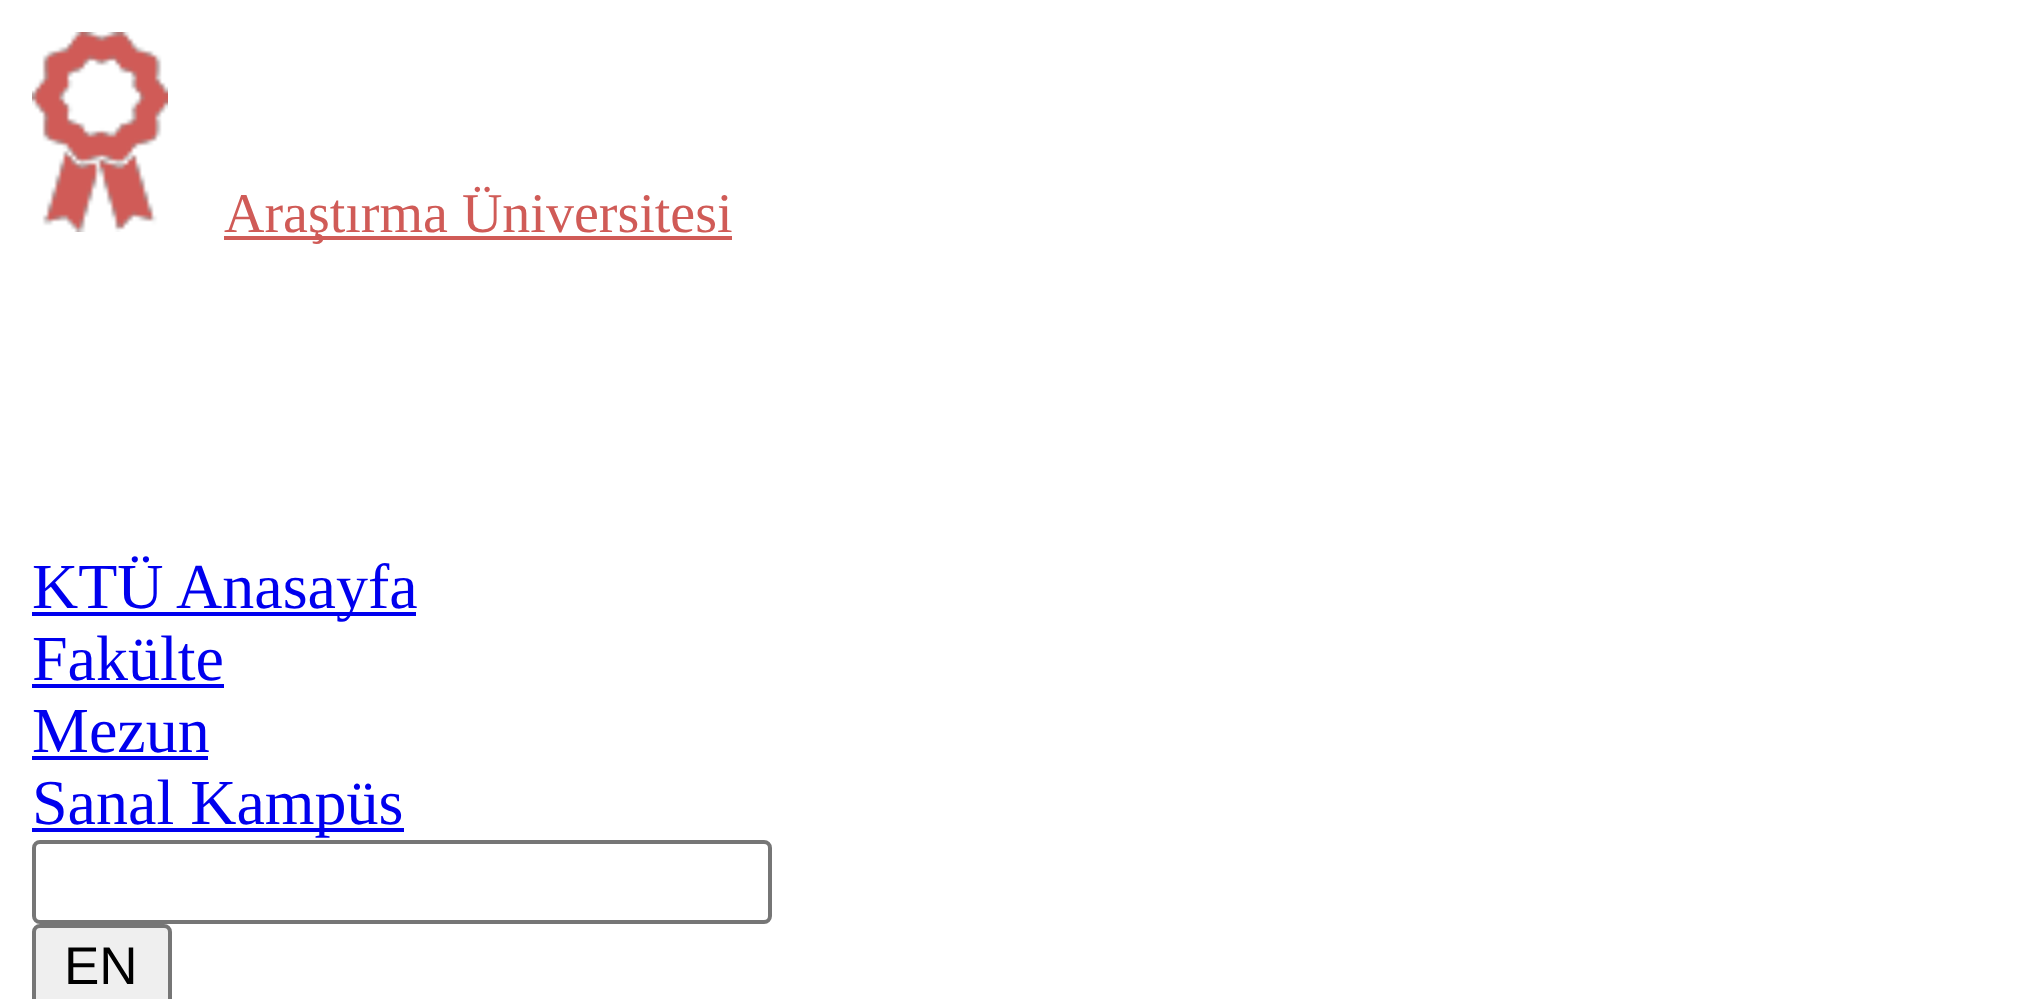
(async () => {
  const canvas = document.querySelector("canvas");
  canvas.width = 2023;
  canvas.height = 999;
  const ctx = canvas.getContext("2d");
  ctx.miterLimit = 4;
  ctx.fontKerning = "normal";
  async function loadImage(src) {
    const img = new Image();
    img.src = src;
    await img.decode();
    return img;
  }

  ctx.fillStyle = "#ffffff";
  ctx.fillRect(0, 0, 2023, 999);
  ctx.drawImage(await loadImage("img/1.png"), 32, 32, 136, 200);
  for (const [x, y, w, h, color] of [
    [224, 236, 508, 4, "#d05b57"],
    [32, 612, 384, 4, "#0000ee"],
    [32, 684, 192, 4, "#0000ee"],
    [32, 756, 176, 4, "#0000ee"],
    [32, 828, 372, 4, "#0000ee"],
  ]) {
    ctx.fillStyle = color;
    ctx.fillRect(x, y, w, h);
  }
  ctx.beginPath();
  ctx.roundRect(34, 842, 736, 80, 6);
  ctx.strokeStyle = "#767676";
  ctx.lineWidth = 4;
  ctx.stroke();
  ctx.fillStyle = "#efefef";
  ctx.beginPath();
  ctx.roundRect(34, 926, 136, 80, 6);
  ctx.fill();
  ctx.stroke();
  ctx.font = "56px Liberation Serif";
  ctx.fillStyle = "#d05b57";
  ctx.fillText("Araştırma Üniversitesi", 224, 232);
  ctx.font = "64px Liberation Serif";
  ctx.fillStyle = "#0000ee";
  for (const [text, x, y] of [
    ["KTÜ Anasayfa", 32, 608],
    ["Fakülte", 32, 680],
    ["Mezun", 32, 752],
    ["Sanal Kampüs", 32, 824],
  ]) {
    ctx.fillText(text, x, y);
  }
  ctx.font = "53px Liberation Sans";
  ctx.fillStyle = "#000000";
  ctx.fillText("EN", 64, 984);
})();
